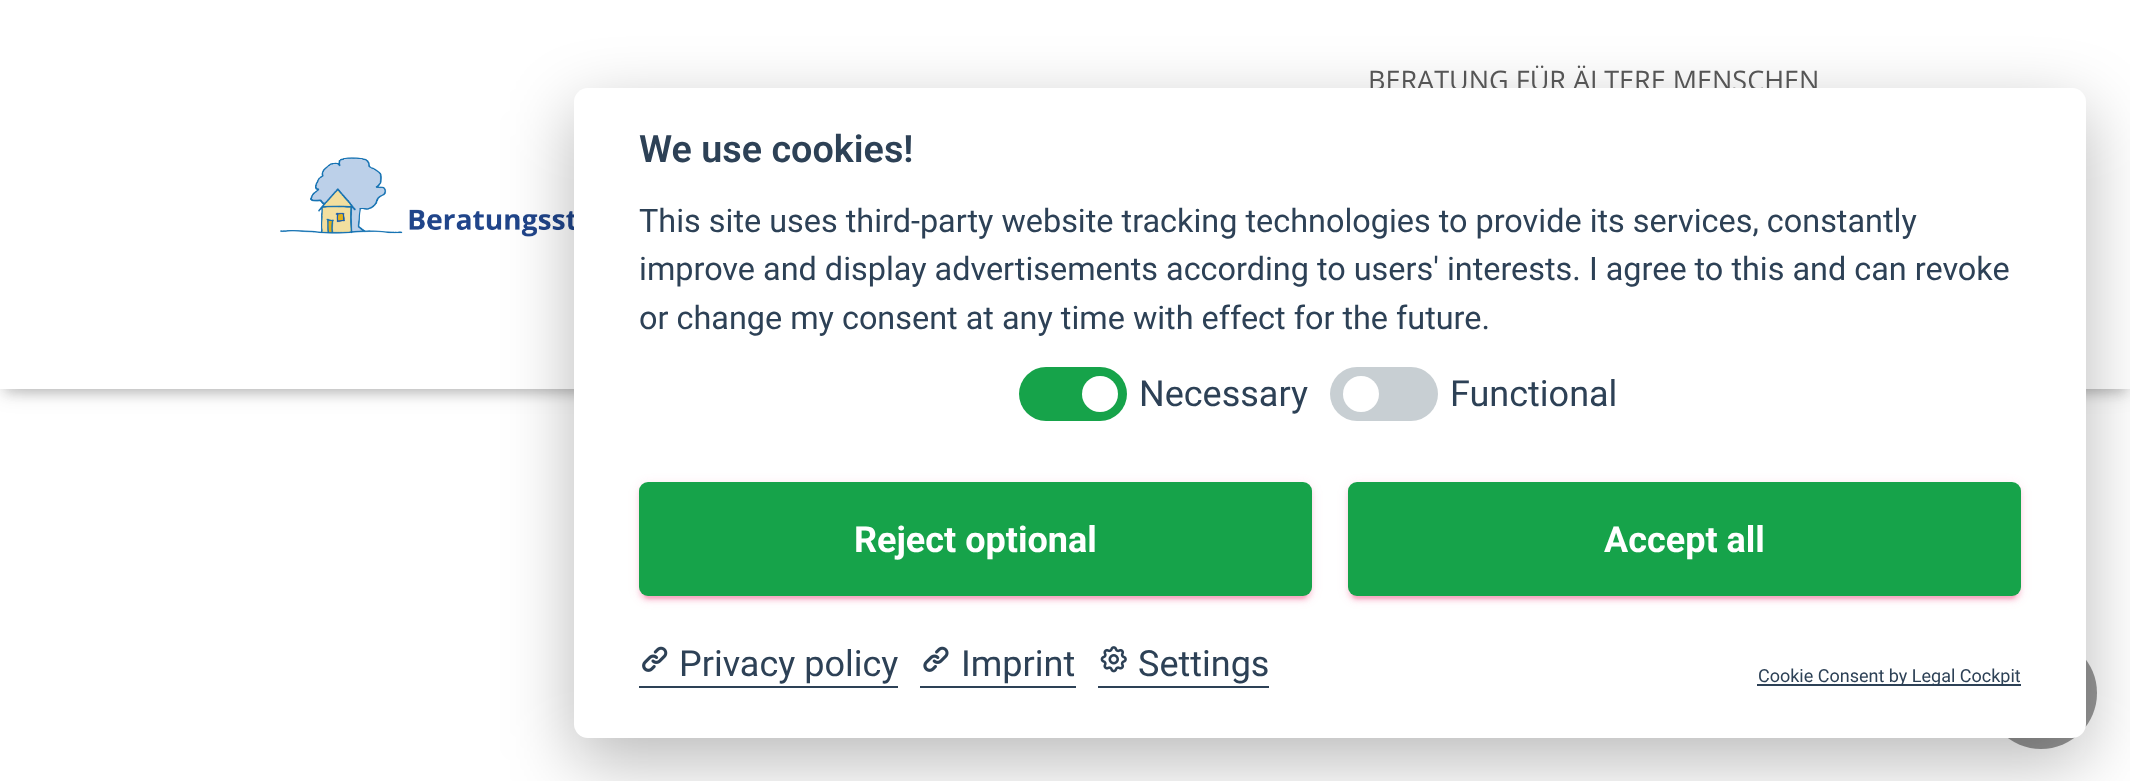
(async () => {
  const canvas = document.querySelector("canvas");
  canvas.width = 2130;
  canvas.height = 781;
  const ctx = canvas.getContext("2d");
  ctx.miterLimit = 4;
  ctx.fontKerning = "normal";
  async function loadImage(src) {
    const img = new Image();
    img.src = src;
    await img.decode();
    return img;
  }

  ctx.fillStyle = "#ffffff";
  ctx.fillRect(0, 0, 2130, 781);
  ctx.fillStyle = "rgba(0, 0, 0, 0.1)";
  ctx.filter = "blur(5.5px)";
  ctx.beginPath();
  ctx.rect(5, 14, 2121, 380);
  ctx.fill();
  ctx.filter = "none";
  ctx.fillStyle = "rgba(0, 0, 0, 0.12)";
  ctx.filter = "blur(11px)";
  ctx.beginPath();
  ctx.rect(0, 2, 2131, 390);
  ctx.fill();
  ctx.filter = "none";
  ctx.fillStyle = "rgba(0, 0, 0, 0.42)";
  ctx.filter = "blur(11px)";
  ctx.beginPath();
  ctx.rect(14, 16, 2103, 362);
  ctx.fill();
  ctx.filter = "none";
  ctx.fillStyle = "#ffffff";
  ctx.fillRect(0, 0, 2130, 389);
  ctx.drawImage(await loadImage("img/1.png"), 280, 157, 294, 80);
  ctx.fillStyle = "#999999";
  ctx.beginPath();
  ctx.arc(2041, 693, 56, 0, Math.PI * 2);
  ctx.fill();
  ctx.fillStyle = "rgba(2, 2, 3, 0.28)";
  ctx.filter = "blur(34px)";
  ctx.beginPath();
  ctx.roundRect(574, 110, 1512, 651, 14);
  ctx.fill();
  ctx.filter = "none";
  ctx.font = "27px Open Sans";
  ctx.fillStyle = "#555555";
  ctx.fillText("BERATUNG FÜR ÄLTERE MENSCHEN", 1368, 90);
  ctx.fillStyle = "#ffffff";
  ctx.beginPath();
  ctx.roundRect(574, 88, 1512, 650, 14);
  ctx.fill();
  ctx.font = "600 37.75px Roboto";
  ctx.fillStyle = "#2d4156";
  ctx.fillText("We use cookies!", 639, 162);
  ctx.font = "32.4px Roboto";
  for (const [text, x, y] of [
    ["This site uses third-party website tracking technologies to provide its services, constantly", 639, 232],
    ["improve and display advertisements according to users' interests. I agree to this and can revoke", 639, 280],
    ["or change my consent at any time with effect for the future.", 639, 329],
  ]) {
    ctx.fillText(text, x, y);
  }
  ctx.fillStyle = "#16a34a";
  ctx.beginPath();
  ctx.roundRect(1019, 367, 108, 54, 27);
  ctx.fill();
  ctx.fillStyle = "#ffffff";
  ctx.beginPath();
  ctx.arc(1100, 394, 18, 0, Math.PI * 2);
  ctx.fill();
  ctx.font = "36px Roboto";
  ctx.fillStyle = "#2d4156";
  ctx.fillText("Necessary", 1139, 406);
  ctx.fillStyle = "#c8cfd3";
  ctx.beginPath();
  ctx.roundRect(1330, 367, 108, 54, 27);
  ctx.fill();
  ctx.fillStyle = "#ffffff";
  ctx.beginPath();
  ctx.arc(1361, 394, 18, 0, Math.PI * 2);
  ctx.fill();
  ctx.fillStyle = "#2d4156";
  ctx.fillText("Functional", 1450, 406);
  ctx.fillStyle = "rgba(233, 30, 99, 0.12)";
  ctx.filter = "blur(5.5px)";
  ctx.beginPath();
  ctx.roundRect(639, 484, 673, 115, 9);
  ctx.fill();
  ctx.filter = "none";
  ctx.fillStyle = "rgba(233, 30, 99, 0.2)";
  ctx.filter = "blur(1px)";
  ctx.beginPath();
  ctx.roundRect(644, 493, 663, 106, 5);
  ctx.fill();
  ctx.filter = "none";
  ctx.fillStyle = "rgba(233, 30, 99, 0.14)";
  ctx.filter = "blur(2px)";
  ctx.beginPath();
  ctx.roundRect(639, 486, 673, 115, 9);
  ctx.fill();
  ctx.filter = "none";
  ctx.fillStyle = "#16a34a";
  ctx.beginPath();
  ctx.roundRect(639, 482, 673, 114, 9);
  ctx.fill();
  ctx.font = "bold 36px Roboto";
  ctx.fillStyle = "#ffffff";
  ctx.fillText("Reject optional", 854, 552);
  ctx.fillStyle = "rgba(233, 30, 99, 0.12)";
  ctx.filter = "blur(5.5px)";
  ctx.beginPath();
  ctx.roundRect(1348, 484, 673, 115, 9);
  ctx.fill();
  ctx.filter = "none";
  ctx.fillStyle = "rgba(233, 30, 99, 0.2)";
  ctx.filter = "blur(1px)";
  ctx.beginPath();
  ctx.roundRect(1352, 493, 664, 106, 5);
  ctx.fill();
  ctx.filter = "none";
  ctx.fillStyle = "rgba(233, 30, 99, 0.14)";
  ctx.filter = "blur(2px)";
  ctx.beginPath();
  ctx.roundRect(1348, 486, 673, 115, 9);
  ctx.fill();
  ctx.filter = "none";
  ctx.fillStyle = "#16a34a";
  ctx.beginPath();
  ctx.roundRect(1348, 482, 673, 114, 9);
  ctx.fill();
  ctx.fillStyle = "#ffffff";
  ctx.fillText("Accept all", 1604, 552);
  ctx.fillStyle = "#2d4156";
  ctx.fillRect(639, 686, 259, 2);
  ctx.drawImage(await loadImage("img/2.png"), 642, 646, 26, 26);
  ctx.font = "36px Roboto";
  ctx.fillText("Privacy policy", 679, 676);
  ctx.fillRect(920, 686, 156, 2);
  ctx.drawImage(await loadImage("img/3.png"), 923, 646, 26, 26);
  ctx.fillText("Imprint", 961, 676);
  ctx.fillRect(1098, 686, 171, 2);
  ctx.drawImage(await loadImage("img/4.png"), 1100, 646, 27, 27);
  ctx.fillText("Settings", 1138, 676);
  ctx.fillRect(1757, 684, 264, 2);
  ctx.font = "18px Roboto";
  ctx.fillText("Cookie Consent by Legal Cockpit", 1758, 682);
})();
